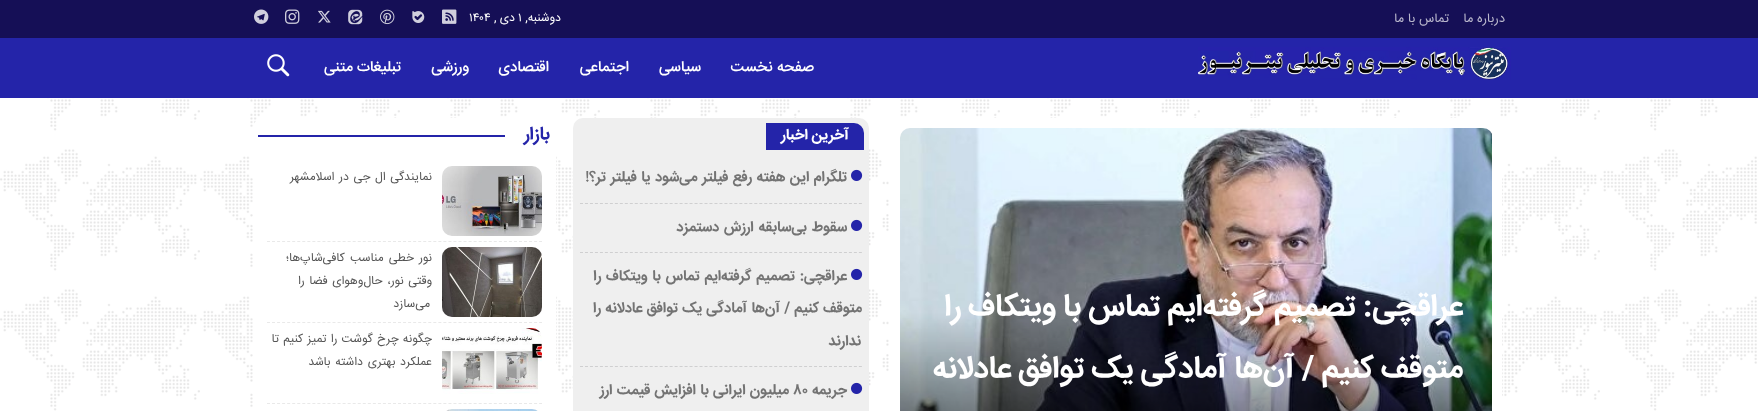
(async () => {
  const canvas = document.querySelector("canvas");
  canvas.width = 1758;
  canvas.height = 411;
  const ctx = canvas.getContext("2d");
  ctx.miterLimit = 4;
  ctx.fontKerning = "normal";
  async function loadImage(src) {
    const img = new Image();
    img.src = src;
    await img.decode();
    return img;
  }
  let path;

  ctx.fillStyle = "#ffffff";
  ctx.fillRect(0, 0, 1758, 411);
  ctx.drawImage(await loadImage("img/1.png"), 0, 98, 1757, 313);
  ctx.fillStyle = "#150f56";
  ctx.fillRect(0, 0, 1758, 38);
  ctx.drawImage(await loadImage("img/2.png"), 442, 9, 15, 15);
  ctx.drawImage(await loadImage("img/3.png"), 412, 11, 13, 12);
  ctx.drawImage(await loadImage("img/4.png"), 380, 9, 15, 16);
  ctx.drawImage(await loadImage("img/5.png"), 348, 9, 15, 16);
  ctx.drawImage(await loadImage("img/6.png"), 318, 10, 13, 13);
  ctx.drawImage(await loadImage("img/7.png"), 285, 9, 15, 15);
  ctx.drawImage(await loadImage("img/8.png"), 254, 9, 15, 15);
  ctx.fillStyle = "#2424a9";
  ctx.fillRect(0, 38, 1758, 60);
  ctx.drawImage(await loadImage("img/9.png"), 1198, 47, 313, 33);
  ctx.drawImage(await loadImage("img/10.png"), 267, 54, 23, 23);
  ctx.fillStyle = "#ffffff";
  ctx.beginPath();
  ctx.roundRect(889, 118, 613, 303, 10);
  ctx.fill();
  ctx.drawImage(await loadImage("img/11.png"), 900, 128, 592, 283);
  ctx.fillStyle = "#efefef";
  ctx.beginPath();
  ctx.roundRect(573, 118, 296, 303, 10);
  ctx.fill();
  ctx.fillStyle = "#2424a9";
  ctx.beginPath();
  ctx.roundRect(766, 123, 98, 27, [0, 10, 0, 0]);
  ctx.fill();
  path = new Path2D("M580 203.5H862");
  ctx.strokeStyle = "#cfcfd0";
  ctx.setLineDash([3, 1.98]);
  ctx.stroke(path);
  ctx.drawImage(await loadImage("img/12.png"), 851, 169, 12, 12);
  path = new Path2D("M580 252.5H862");
  ctx.stroke(path);
  ctx.drawImage(await loadImage("img/12.png"), 851, 219, 12, 12);
  path = new Path2D("M580 366.5H862");
  ctx.stroke(path);
  ctx.drawImage(await loadImage("img/12.png"), 851, 268, 12, 12);
  ctx.drawImage(await loadImage("img/12.png"), 851, 382, 12, 12);
  ctx.fillStyle = "#ffffff";
  ctx.beginPath();
  ctx.roundRect(253, 118, 303, 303, 10);
  ctx.fill();
  ctx.fillStyle = "#2424a9";
  ctx.fillRect(258, 135, 247, 2);
  path = new Path2D("M267 241.5H542");
  ctx.strokeStyle = "#e9e9e9";
  ctx.setLineDash([3, 2.04]);
  ctx.stroke(path);
  ctx.drawImage(await loadImage("img/13.png"), 442, 166, 100, 70);
  path = new Path2D("M267 322.5H542");
  ctx.stroke(path);
  ctx.drawImage(await loadImage("img/14.png"), 442, 247, 100, 70);
  path = new Path2D("M267 403.5H542");
  ctx.stroke(path);
  ctx.drawImage(await loadImage("img/15.png"), 442, 328, 100, 66);
  ctx.drawImage(await loadImage("img/16.png"), 446, 409, 92, 2);
  ctx.direction = "rtl";
  ctx.font = "13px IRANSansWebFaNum";
  ctx.fillStyle = "#b9b7cc";
  ctx.fillText("درباره ما", 1505, 22);
  ctx.fillText("تماس با ما", 1449, 22);
  ctx.font = "12px IRANSansWebFaNum";
  ctx.fillStyle = "#ffffff";
  ctx.fillText("دوشنبه,", 561, 21);
  ctx.direction = "ltr";
  ctx.fillText("۱", 518, 21);
  ctx.direction = "rtl";
  ctx.fillText("دی ,", 515, 21);
  ctx.direction = "ltr";
  ctx.fillText("۱۴۰۴", 469, 21);
  ctx.direction = "rtl";
  ctx.font = "500 15px IRANSansWebFaNum";
  for (const [text, x, y] of [
    ["صفحه نخست", 814, 71],
    ["سیاسی", 701, 71],
    ["اجتماعی", 629, 71],
    ["اقتصادی", 549, 71],
    ["ورزشی", 469, 71],
    ["تبلیغات متنی", 401, 71],
  ]) {
    ctx.fillText(text, x, y);
  }
  ctx.font = "bold 30.8px IRANSansWebFaNum";
  ctx.fillText("عراقچی: تصمیم گرفته‌ایم تماس با ویتکاف را", 1463, 315);
  ctx.fillText("متوقف کنیم / آن‌ها آمادگی یک توافق عادلانه", 1463, 377);
  ctx.font = "bold 15px IRANSansWebFaNum";
  ctx.fillText("آخرین اخبار", 849, 139);
  ctx.letterSpacing = "-0.2px";
  ctx.wordSpacing = "1.25px";
  ctx.font = "bold 14.6px IRANSansWebFaNum";
  ctx.fillStyle = "#737373";
  ctx.fillText("تلگرام این هفته رفع فیلتر می‌شود یا فیلتر تر؟!", 847, 181);
  ctx.wordSpacing = "1.5px";
  ctx.fillText("سقوط بی‌سابقه ارزش دستمزد", 847, 231);
  ctx.fillText("عراقچی: تصمیم گرفته‌ایم تماس با ویتکاف را", 847, 280);
  ctx.wordSpacing = "1px";
  ctx.fillText("متوقف کنیم / آن‌ها آمادگی یک توافق عادلانه را", 862, 312);
  ctx.wordSpacing = "0px";
  ctx.fillText("ندارند", 861, 345);
  ctx.fillText("جریمه", 847, 394);
  ctx.direction = "ltr";
  ctx.fillText("۸۰", 793, 394);
  ctx.wordSpacing = "1px";
  ctx.direction = "rtl";
  ctx.fillText("میلیون ایرانی با افزایش قیمت ارز", 789, 394);
  ctx.letterSpacing = "0px";
  ctx.wordSpacing = "0px";
  ctx.font = "bold 18px IRANSansWebFaNum";
  ctx.fillStyle = "#2424a9";
  ctx.fillText("بازار", 550, 139);
  ctx.letterSpacing = "-0.2px";
  ctx.wordSpacing = "1.5px";
  ctx.font = "12px IRANSansWebFaNum";
  ctx.fillStyle = "#555555";
  ctx.fillText("نمایندگی ال جی در اسلامشهر", 432, 180);
  ctx.wordSpacing = "2px";
  ctx.fillText("نور خطی مناسب کافی‌شاپ‌ها؛", 432, 261);
  ctx.wordSpacing = "1.5px";
  ctx.fillText("وقتی نور، حال‌وهوای فضا را", 432, 284);
  ctx.wordSpacing = "0px";
  ctx.fillText("می‌سازد", 430, 307);
  ctx.wordSpacing = "1px";
  ctx.fillText("چگونه چرخ گوشت را تمیز کنیم تا", 432, 342);
  ctx.wordSpacing = "1.5px";
  ctx.fillText("عملکرد بهتری داشته باشد", 432, 365);
})();
